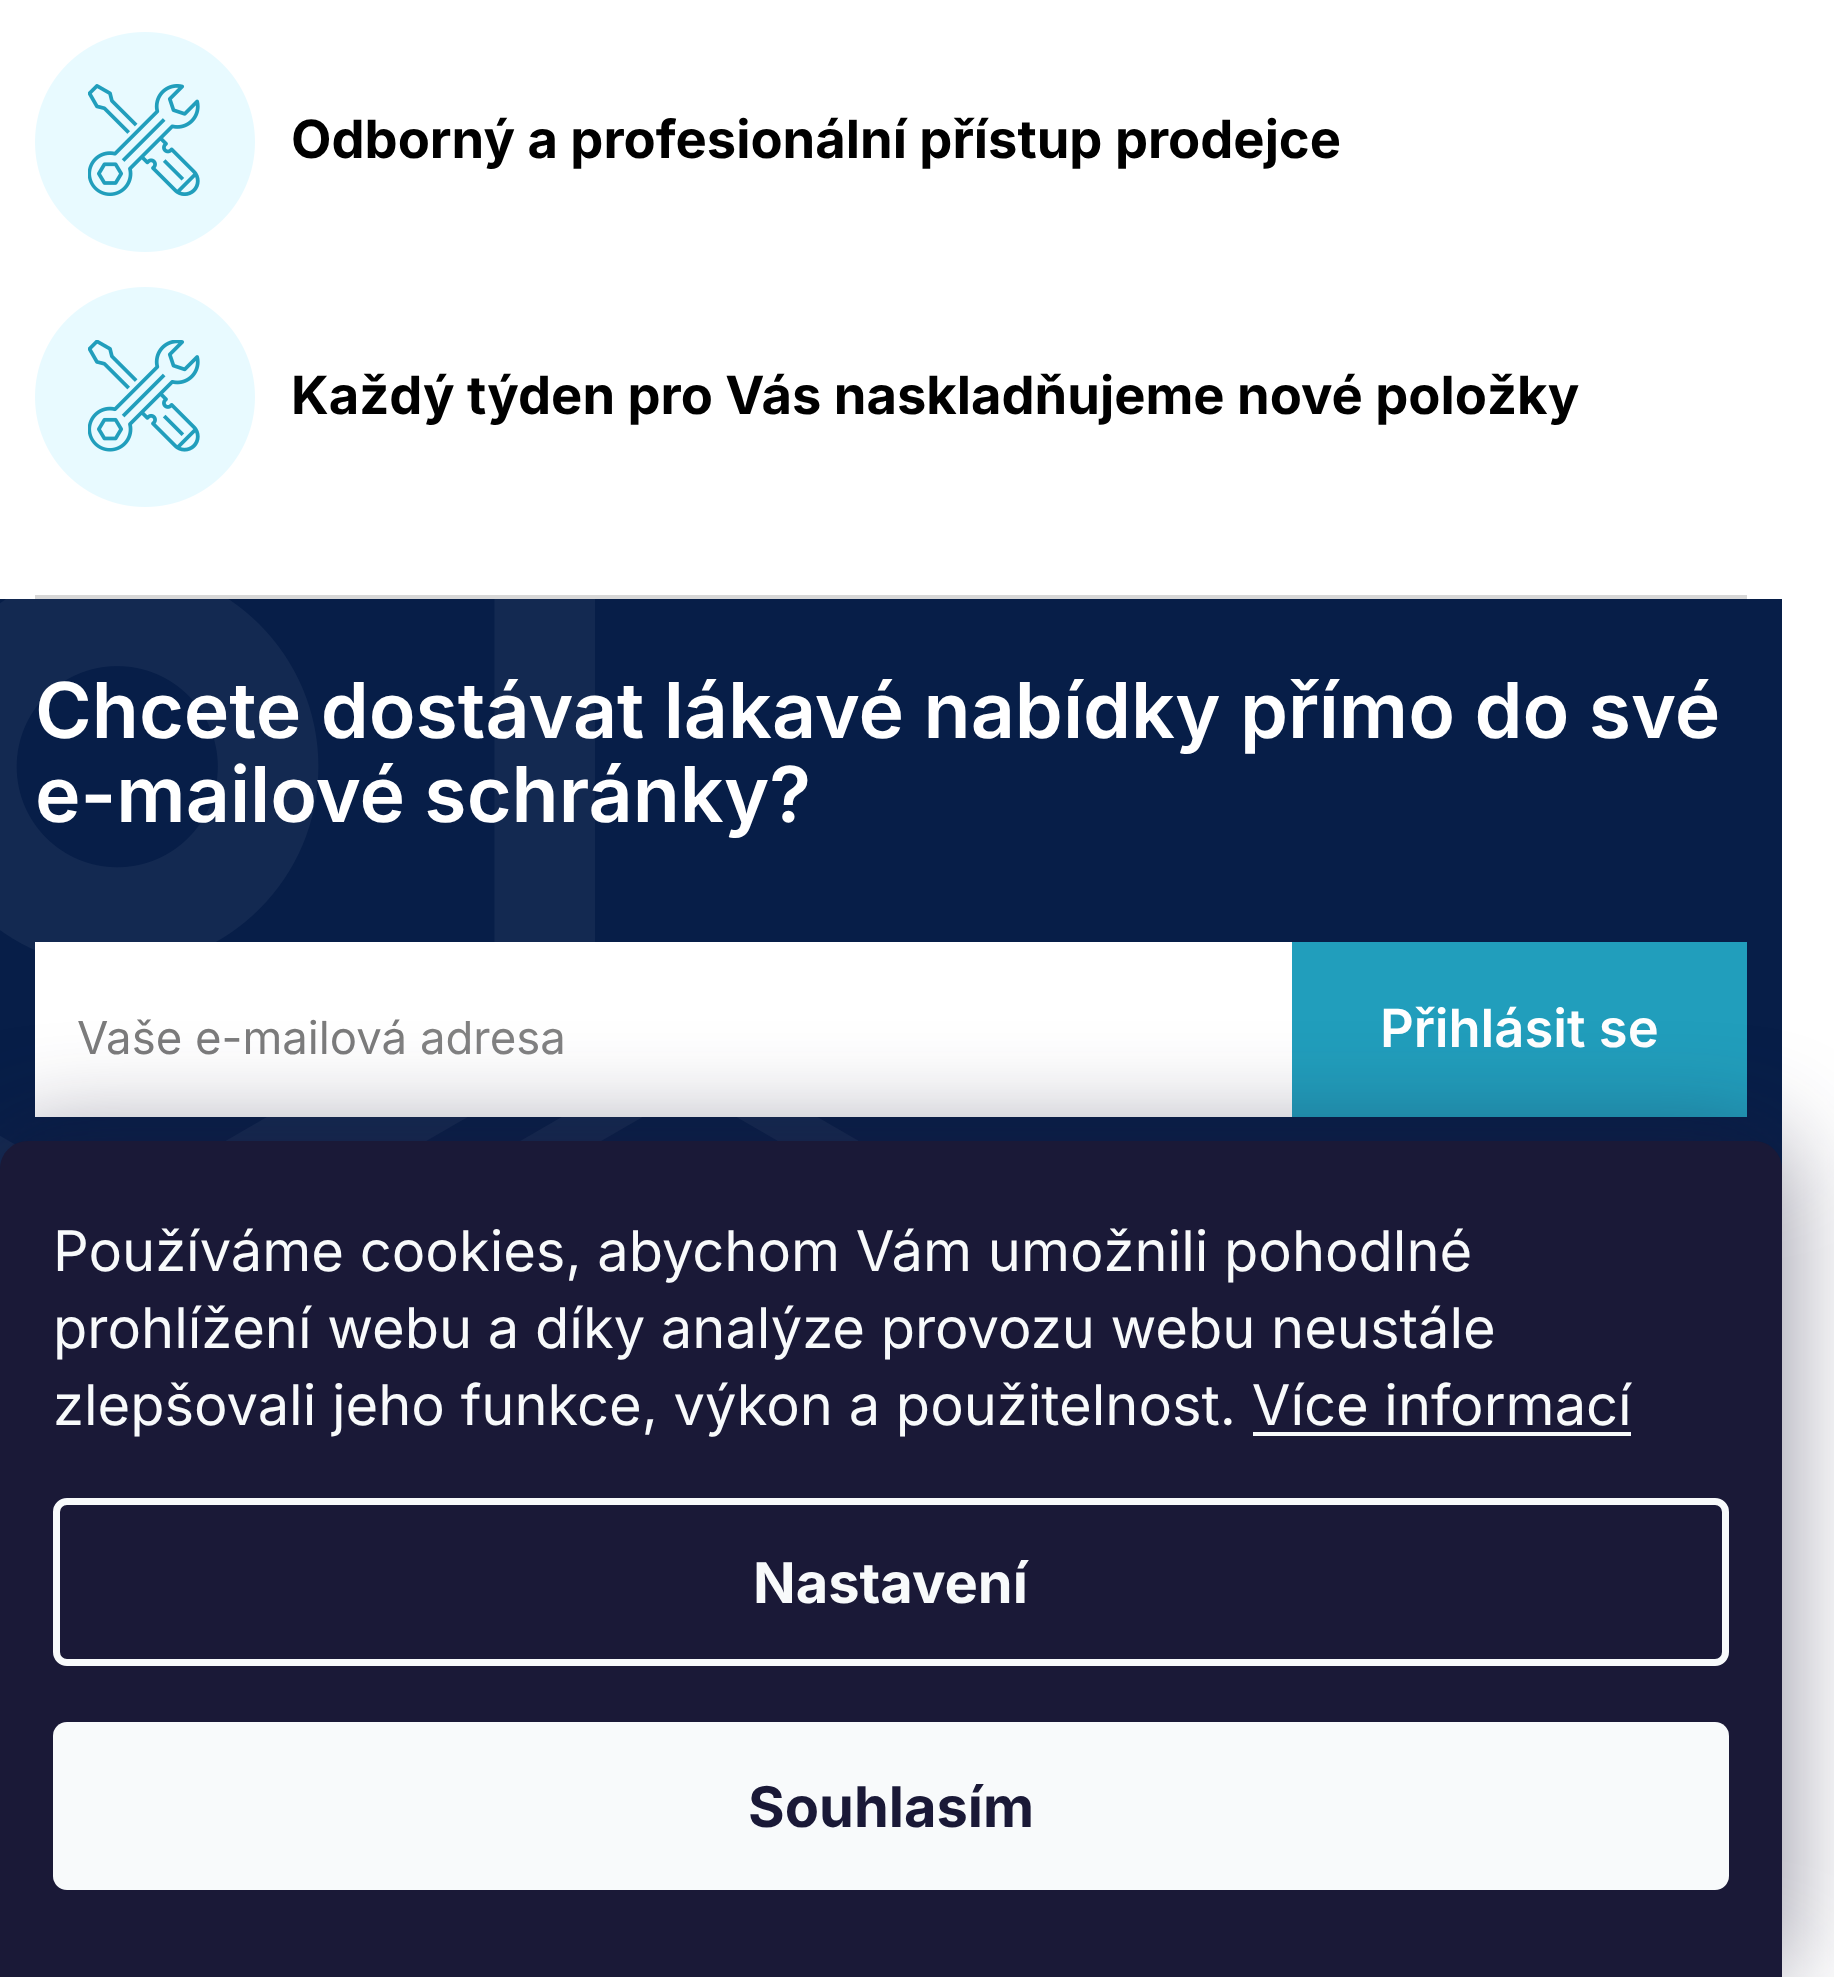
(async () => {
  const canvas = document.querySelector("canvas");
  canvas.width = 1834;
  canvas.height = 1977;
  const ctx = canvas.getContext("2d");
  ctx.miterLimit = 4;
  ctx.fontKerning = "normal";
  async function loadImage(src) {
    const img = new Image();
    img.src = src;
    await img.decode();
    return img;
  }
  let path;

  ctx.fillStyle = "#ffffff";
  ctx.fillRect(0, 0, 1834, 1977);
  ctx.fillStyle = "#d7d7d7";
  ctx.fillRect(35, 595, 1712, 4);
  ctx.drawImage(await loadImage("img/1.png"), 35, 32, 220, 220);
  ctx.drawImage(await loadImage("img/2.png"), 35, 287, 220, 220);
  for (const [x, y, w, h, color] of [
    [0, 599, 1782, 570, "#071e48"],
    [35, 942, 1257, 175, "#ffffff"],
    [1292, 942, 455, 175, "#219ebc"],
  ]) {
    ctx.fillStyle = color;
    ctx.fillRect(x, y, w, h);
  }
  ctx.font = "bold 52.5px Inter";
  ctx.fillStyle = "#000000";
  ctx.fillText("Odborný a profesionální přístup prodejce", 291, 158);
  ctx.fillText("Každý týden pro Vás naskladňujeme nové položky", 291, 414);
  ctx.font = "600 77px Inter";
  ctx.fillStyle = "#ffffff";
  ctx.fillText("Chcete dostávat lákavé nabídky přímo do své", 35, 738);
  ctx.fillText("e-mailové schránky?", 35, 822);
  ctx.font = "45.5px Inter";
  ctx.fillStyle = "#7c7c7c";
  ctx.fillText("Vaše e-mailová adresa", 77, 1054);
  ctx.drawImage(await loadImage("img/3.png"), 0, 599, 858, 570);
  ctx.font = "600 52.5px Inter";
  ctx.fillStyle = "#ffffff";
  ctx.fillText("Přihlásit se", 1380, 1047);
  ctx.fillStyle = "rgba(27, 25, 57, 0.5)";
  ctx.filter = "blur(52.5px)";
  ctx.beginPath();
  ctx.roundRect(0, 1141, 1782, 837, 28);
  ctx.fill();
  ctx.filter = "none";
  ctx.fillStyle = "#1a1937";
  path = new Path2D("M28 1141H1754C1769.5 1141 1782 1153.5 1782 1169V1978H0V1169C0 1153.5 12.5 1141 28 1141Z");
  ctx.fill(path);
  ctx.font = "56px Inter";
  ctx.fillStyle = "#f8fafb";
  for (const [text, x, y] of [
    ["Používáme cookies, abychom Vám umožnili pohodlné", 53, 1271],
    ["prohlížení webu a díky analýze provozu webu neustále", 53, 1348],
    ["zlepšovali jeho funkce, výkon a použitelnost. Více informací", 53, 1425],
  ]) {
    ctx.fillText(text, x, y);
  }
  ctx.fillRect(1253, 1432, 378, 4);
  ctx.beginPath();
  ctx.roundRect(56.5, 1501.5, 1669, 161, 10.5);
  ctx.strokeStyle = "#f8fafb";
  ctx.lineWidth = 7;
  ctx.stroke();
  ctx.font = "bold 56px Inter";
  ctx.fillText("Nastavení", 753, 1603);
  ctx.beginPath();
  ctx.roundRect(53, 1722, 1676, 168, 14);
  ctx.fill();
  ctx.fillStyle = "#1a1937";
  ctx.fillText("Souhlasím", 748, 1827);
})();
